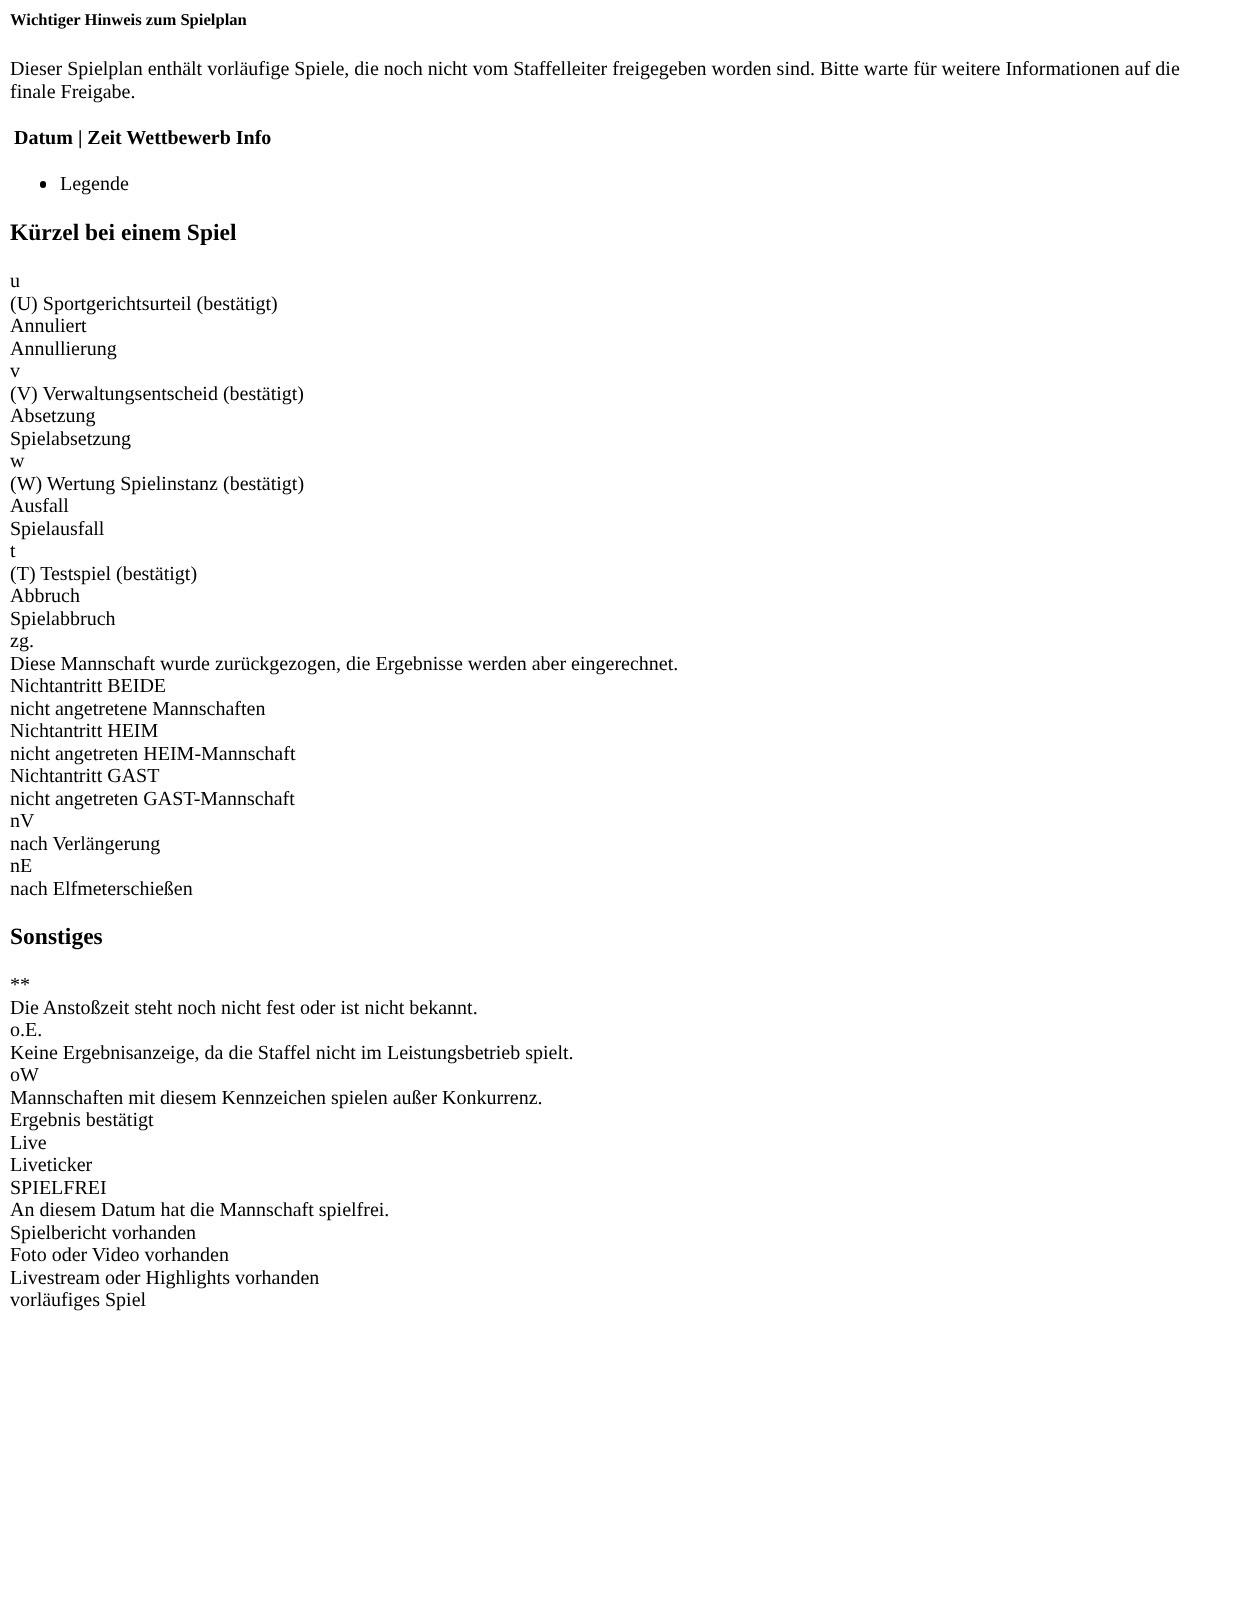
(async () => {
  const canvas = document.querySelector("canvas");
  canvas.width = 1240;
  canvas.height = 1613;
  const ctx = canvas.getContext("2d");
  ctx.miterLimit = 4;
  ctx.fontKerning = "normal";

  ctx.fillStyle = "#ffffff";
  ctx.fillRect(0, 0, 1240, 1613);
  ctx.fillStyle = "#000000";
  ctx.beginPath();
  ctx.roundRect(40, 181, 6, 7, 3);
  ctx.fill();
  ctx.font = "bold 16.6px Liberation Serif";
  ctx.fillText("Wichtiger Hinweis zum Spielplan", 10, 25);
  ctx.font = "20px Liberation Serif";
  ctx.fillText("Dieser Spielplan enthält vorläufige Spiele, die noch nicht vom Staffelleiter freigegeben worden sind. Bitte warte für weitere Informationen auf die", 10, 75);
  ctx.fillText("finale Freigabe.", 10, 98);
  ctx.font = "bold 20px Liberation Serif";
  ctx.fillText("Datum | Zeit Wettbewerb Info", 14, 144);
  ctx.font = "20px Liberation Serif";
  ctx.fillText("Legende", 60, 190);
  ctx.font = "bold 23.5px Liberation Serif";
  ctx.fillText("Kürzel bei einem Spiel", 10, 240);
  ctx.font = "20px Liberation Serif";
  for (const [text, x, y] of [
    ["u", 10, 287],
    ["(U) Sportgerichtsurteil (bestätigt)", 10, 310],
    ["Annuliert", 10, 332],
    ["Annullierung", 10, 355],
    ["v", 10, 377],
    ["(V) Verwaltungsentscheid (bestätigt)", 10, 400],
    ["Absetzung", 10, 422],
    ["Spielabsetzung", 10, 445],
    ["w", 10, 467],
    ["(W) Wertung Spielinstanz (bestätigt)", 10, 490],
    ["Ausfall", 10, 512],
    ["Spielausfall", 10, 535],
    ["t", 10, 557],
    ["(T) Testspiel (bestätigt)", 10, 580],
    ["Abbruch", 10, 602],
    ["Spielabbruch", 10, 625],
    ["zg.", 10, 647],
    ["Diese Mannschaft wurde zurückgezogen, die Ergebnisse werden aber eingerechnet.", 10, 670],
    ["Nichtantritt BEIDE", 10, 692],
    ["nicht angetretene Mannschaften", 10, 715],
    ["Nichtantritt HEIM", 10, 737],
    ["nicht angetreten HEIM-Mannschaft", 10, 760],
    ["Nichtantritt GAST", 10, 782],
    ["nicht angetreten GAST-Mannschaft", 10, 805],
    ["nV", 10, 827],
    ["nach Verlängerung", 10, 850],
    ["nE", 10, 872],
    ["nach Elfmeterschießen", 10, 895],
  ]) {
    ctx.fillText(text, x, y);
  }
  ctx.font = "bold 23.5px Liberation Serif";
  ctx.fillText("Sonstiges", 10, 944);
  ctx.font = "20px Liberation Serif";
  for (const [text, x, y] of [
    ["**", 10, 991],
    ["Die Anstoßzeit steht noch nicht fest oder ist nicht bekannt.", 10, 1014],
    ["o.E.", 10, 1036],
    ["Keine Ergebnisanzeige, da die Staffel nicht im Leistungsbetrieb spielt.", 10, 1059],
    ["oW", 10, 1081],
    ["Mannschaften mit diesem Kennzeichen spielen außer Konkurrenz.", 10, 1104],
    ["Ergebnis bestätigt", 10, 1126],
    ["Live", 10, 1149],
    ["Liveticker", 10, 1171],
    ["SPIELFREI", 10, 1194],
    ["An diesem Datum hat die Mannschaft spielfrei.", 10, 1216],
    ["Spielbericht vorhanden", 10, 1239],
    ["Foto oder Video vorhanden", 10, 1261],
    ["Livestream oder Highlights vorhanden", 10, 1284],
    ["vorläufiges Spiel", 10, 1306],
  ]) {
    ctx.fillText(text, x, y);
  }
})();
